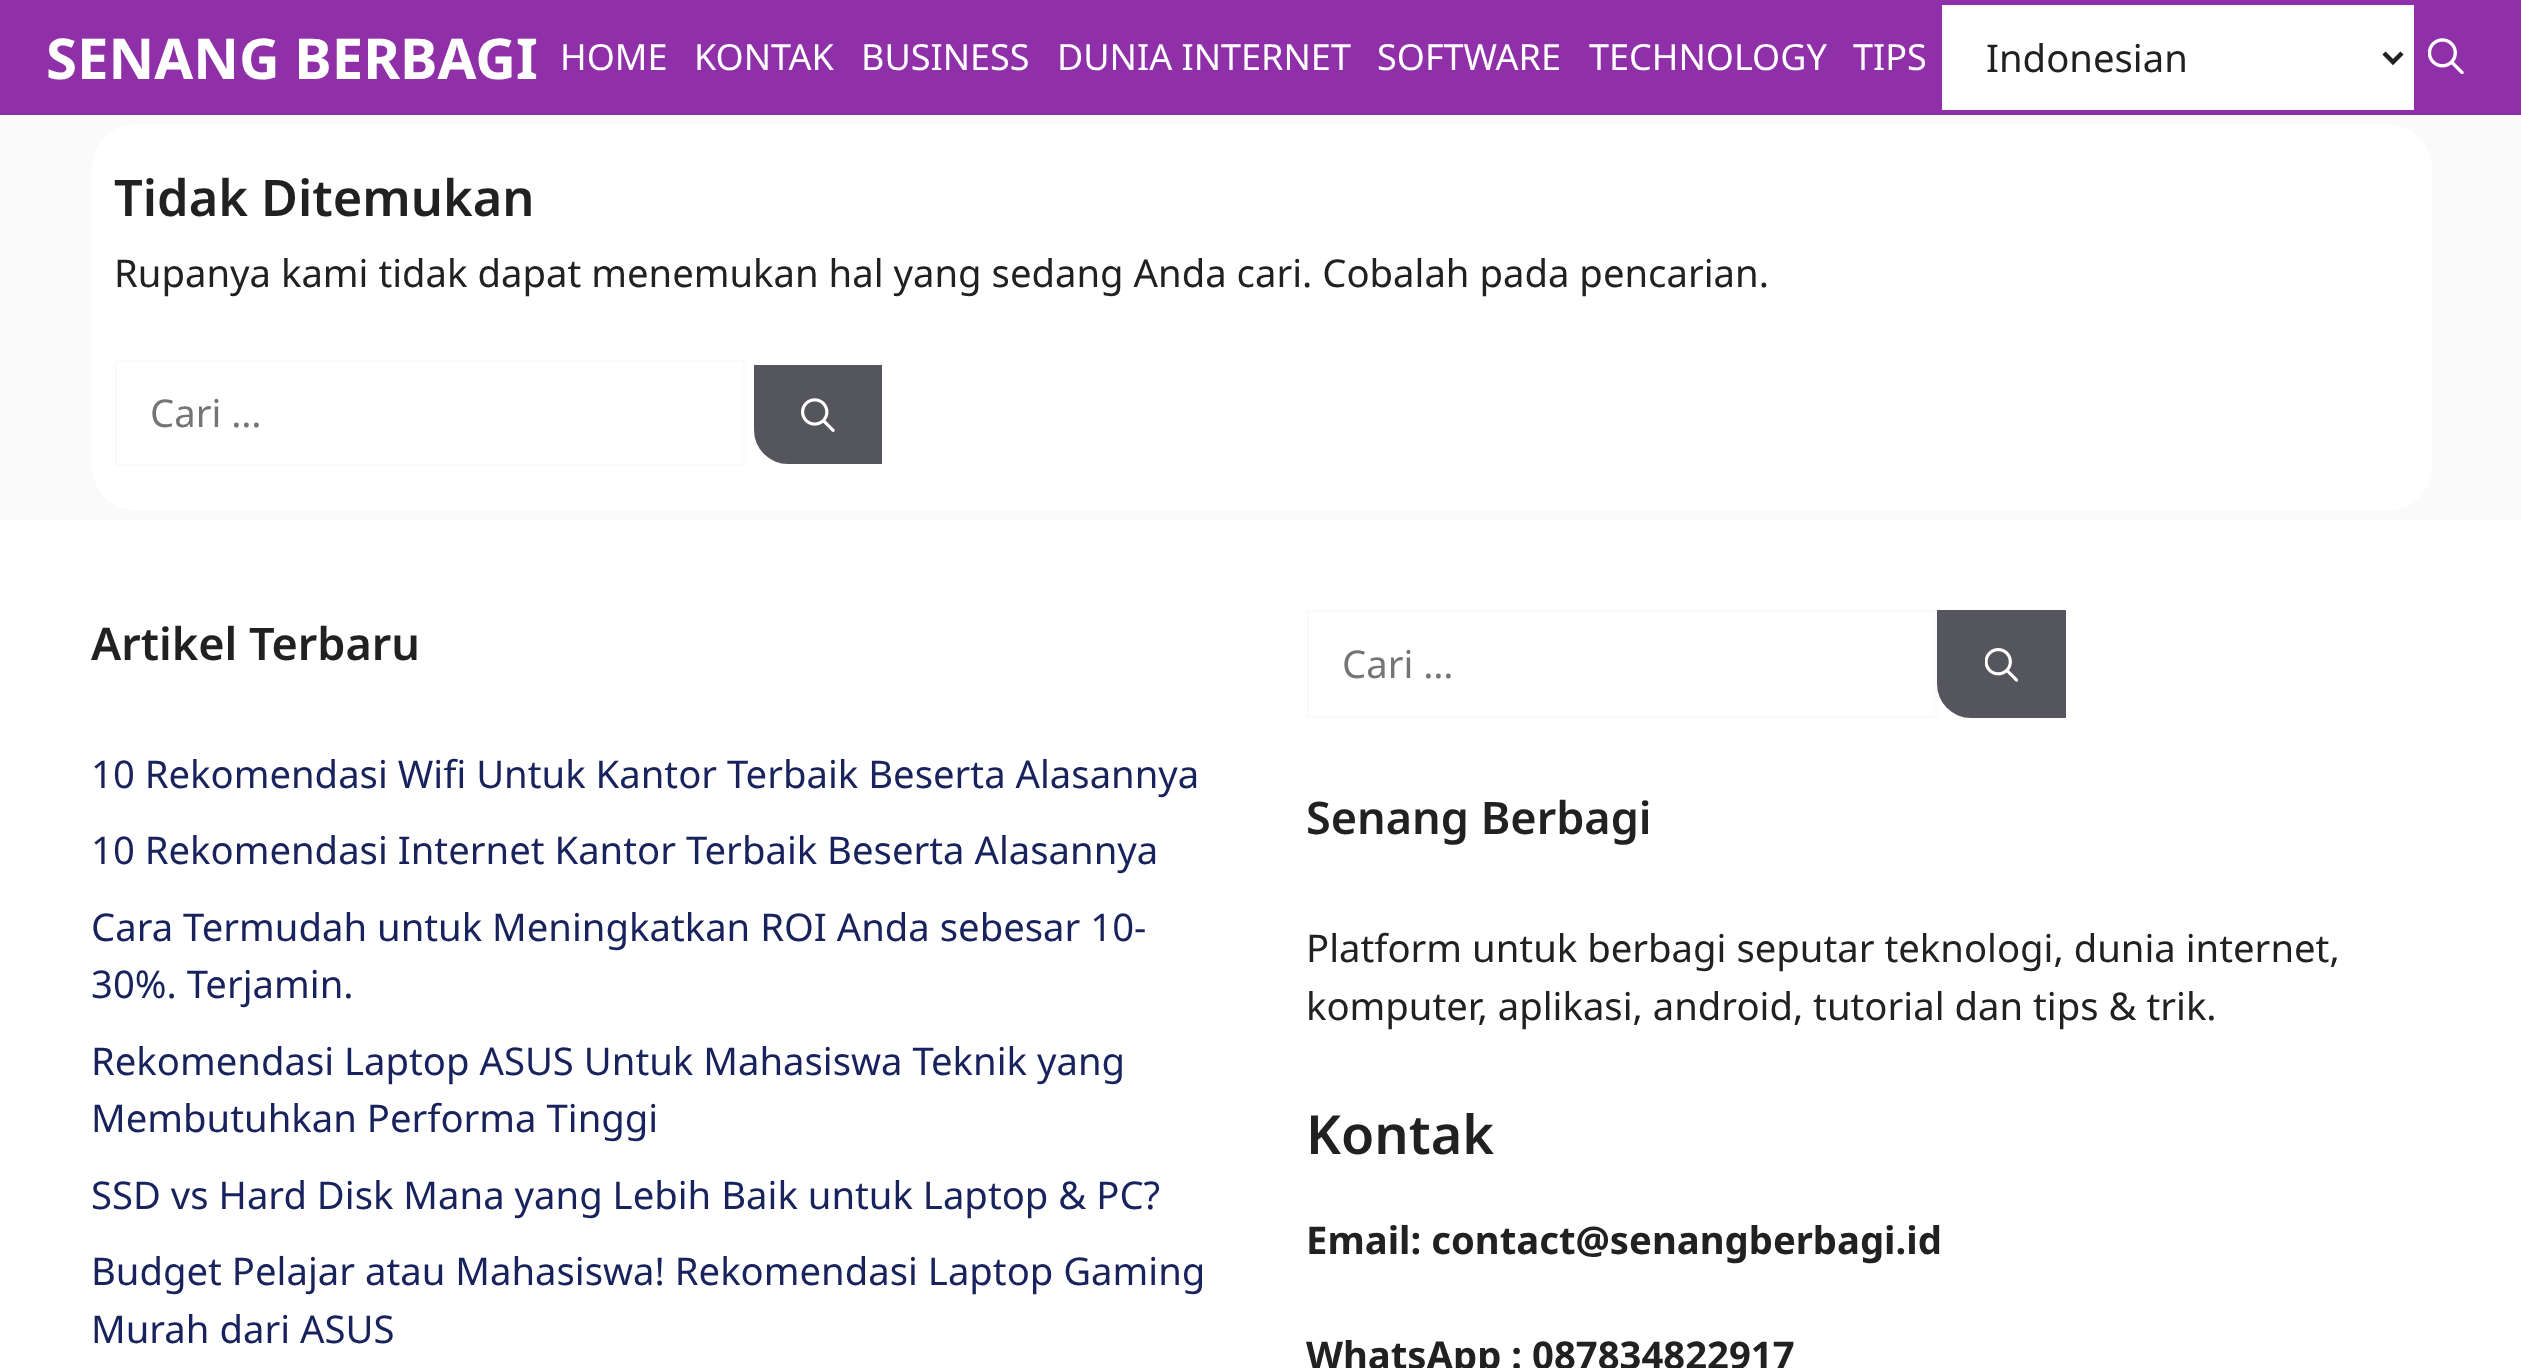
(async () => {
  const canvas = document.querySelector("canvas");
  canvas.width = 2521;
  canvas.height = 1368;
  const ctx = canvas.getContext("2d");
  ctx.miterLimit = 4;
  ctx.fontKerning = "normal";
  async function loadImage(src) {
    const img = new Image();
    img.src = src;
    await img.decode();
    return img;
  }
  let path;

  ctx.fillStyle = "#fafafa";
  ctx.fillRect(0, 0, 2521, 1368);
  ctx.fillStyle = "#8f30a9";
  ctx.fillRect(0, 0, 2521, 115);
  ctx.fillStyle = "#ffffff";
  ctx.beginPath();
  ctx.rect(1943, 6, 470, 103);
  ctx.fill();
  ctx.strokeStyle = "#fafafa";
  ctx.lineWidth = 2;
  ctx.stroke();
  path = new Path2D("M2384 53L2393 62L2402 53");
  ctx.strokeStyle = "#212121";
  ctx.lineWidth = 4.5;
  ctx.stroke(path);
  ctx.drawImage(await loadImage("img/1.png"), 2428, 38, 36, 36);
  ctx.beginPath();
  ctx.roundRect(92, 124, 2340, 387, 45);
  ctx.fill();
  ctx.strokeStyle = "#fafafa";
  ctx.lineWidth = 2;
  ctx.strokeRect(116, 361, 628, 104);
  ctx.fillStyle = "#55555e";
  ctx.beginPath();
  ctx.roundRect(754, 365, 128, 99, [0, 0, 0, 34]);
  ctx.fill();
  ctx.drawImage(await loadImage("img/2.png"), 801, 398, 34, 34);
  ctx.fillStyle = "#ffffff";
  ctx.fillRect(0, 520, 2521, 848);
  ctx.strokeRect(1308, 611, 628, 106);
  ctx.fillStyle = "#55555e";
  ctx.beginPath();
  ctx.roundRect(1937, 610, 129, 108, [0, 0, 0, 34]);
  ctx.fill();
  ctx.drawImage(await loadImage("img/3.png"), 1985, 648, 33, 34);
  ctx.font = "bold 56.25px Noto Sans";
  ctx.fillStyle = "#ffffff";
  ctx.fillText("SENANG BERBAGI", 46, 79);
  ctx.font = "36px Noto Sans";
  for (const [text, x, y] of [
    ["HOME", 560, 70],
    ["KONTAK", 694, 70],
    ["BUSINESS", 861, 70],
    ["DUNIA INTERNET", 1057, 70],
    ["SOFTWARE", 1377, 70],
    ["TECHNOLOGY", 1589, 70],
    ["TIPS", 1853, 70],
  ]) {
    ctx.fillText(text, x, y);
  }
  ctx.font = "38.25px Noto Sans";
  ctx.fillStyle = "#212121";
  ctx.fillText("Indonesian", 1986, 72);
  ctx.font = "600 50.5px Noto Sans";
  ctx.fillText("Tidak Ditemukan", 114, 216);
  ctx.font = "38.25px Noto Sans";
  ctx.fillText("Rupanya kami tidak dapat menemukan hal yang sedang Anda cari. Cobalah pada pencarian.", 114, 287);
  ctx.fillStyle = "#757575";
  ctx.fillText("Cari …", 150, 427);
  ctx.font = "600 45px Noto Sans";
  ctx.fillStyle = "#212121";
  ctx.fillText("Artikel Terbaru", 91, 660);
  ctx.font = "38.25px Noto Sans";
  ctx.fillStyle = "#18225d";
  for (const [text, x, y] of [
    ["10 Rekomendasi Wifi Untuk Kantor Terbaik Beserta Alasannya", 91, 788],
    ["10 Rekomendasi Internet Kantor Terbaik Beserta Alasannya", 91, 864],
    ["Cara Termudah untuk Meningkatkan ROI Anda sebesar 10-", 91, 941],
    ["30%. Terjamin.", 91, 998],
    ["Rekomendasi Laptop ASUS Untuk Mahasiswa Teknik yang", 91, 1075],
    ["Membutuhkan Performa Tinggi", 91, 1132],
    ["SSD vs Hard Disk Mana yang Lebih Baik untuk Laptop & PC?", 91, 1209],
    ["Budget Pelajar atau Mahasiswa! Rekomendasi Laptop Gaming", 91, 1285],
    ["Murah dari ASUS", 91, 1343],
  ]) {
    ctx.fillText(text, x, y);
  }
  ctx.fillStyle = "#757575";
  ctx.fillText("Cari …", 1342, 678);
  ctx.font = "600 45px Noto Sans";
  ctx.fillStyle = "#212121";
  ctx.fillText("Senang Berbagi", 1306, 834);
  ctx.font = "38.25px Noto Sans";
  ctx.fillText("Platform untuk berbagi seputar teknologi, dunia internet,", 1306, 962);
  ctx.fillText("komputer, aplikasi, android, tutorial dan tips & trik.", 1306, 1020);
  ctx.font = "600 54px Noto Sans";
  ctx.fillText("Kontak", 1306, 1154);
  ctx.font = "bold 38.25px Noto Sans";
  ctx.fillText("Email: contact@senangberbagi.id", 1306, 1254);
  ctx.fillText("WhatsApp : 087834822917", 1306, 1369);
})();
